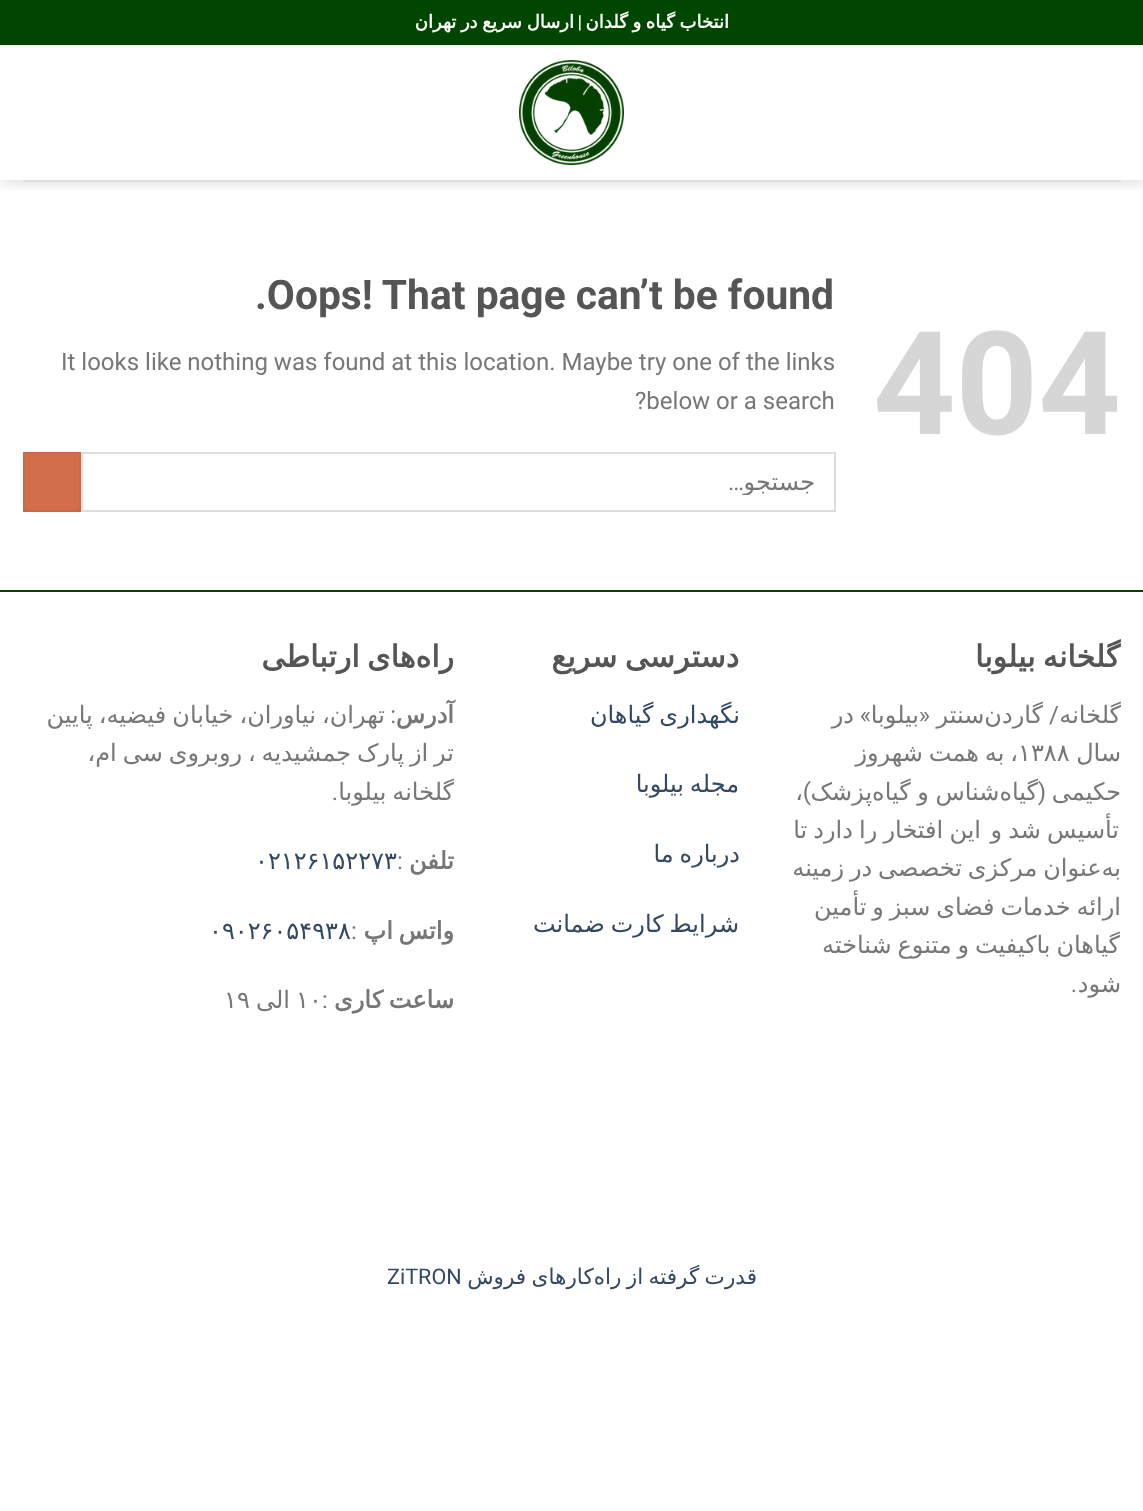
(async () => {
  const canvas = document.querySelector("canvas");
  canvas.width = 1143;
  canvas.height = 1511;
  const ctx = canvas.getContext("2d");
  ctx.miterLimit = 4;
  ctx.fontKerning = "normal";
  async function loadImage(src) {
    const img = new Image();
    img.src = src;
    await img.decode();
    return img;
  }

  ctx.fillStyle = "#ffffff";
  ctx.fillRect(0, 0, 1143, 1511);
  ctx.save();
  ctx.beginPath();
  ctx.rect(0, 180, 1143, 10);
  ctx.clip();
  ctx.fillStyle = "rgba(0, 0, 0, 0.15)";
  ctx.filter = "blur(7.5px)";
  ctx.beginPath();
  ctx.rect(2, 2, 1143, 180);
  ctx.fill();
  ctx.filter = "none";
  ctx.restore();
  ctx.fillStyle = "#004600";
  ctx.fillRect(0, 0, 1143, 45);
  ctx.drawImage(await loadImage("img/1.png"), 519, 60, 105, 105);
  ctx.fillStyle = "#dedede";
  ctx.fillRect(23, 180, 1098, 2);
  ctx.strokeStyle = "#dddddd";
  ctx.lineWidth = 2;
  ctx.strokeRect(82, 453, 753, 58);
  ctx.fillStyle = "#d26e4b";
  ctx.beginPath();
  ctx.rect(24, 453, 56, 58);
  ctx.fill();
  ctx.strokeStyle = "#c86947";
  ctx.stroke();
  ctx.fillStyle = "#044100";
  ctx.fillRect(0, 590, 1143, 2);
  ctx.wordSpacing = "-1px";
  ctx.direction = "rtl";
  ctx.font = "bold 18px DejaVu Sans";
  ctx.fillStyle = "#ffffff";
  ctx.fillText("انتخاب گیاه و گلدان", 729, 28);
  ctx.wordSpacing = "0px";
  ctx.font = "bold 18px Roboto";
  ctx.fillText("|", 582, 28);
  ctx.wordSpacing = "-1px";
  ctx.font = "bold 18px DejaVu Sans";
  ctx.fillText("ارسال سریع در تهران", 574, 28);
  ctx.wordSpacing = "0px";
  ctx.direction = "ltr";
  ctx.font = "bold 144px Roboto";
  ctx.fillStyle = "#d6d6d6";
  ctx.fillText("404", 873, 434);
  ctx.font = "bold 40.75px Roboto";
  ctx.fillStyle = "#555555";
  ctx.fillText(".Oops! That page can’t be found", 255, 309);
  ctx.font = "24px Roboto";
  ctx.fillStyle = "#777777";
  ctx.fillText("It looks like nothing was found at this location. Maybe try one of the links", 61, 370);
  ctx.fillText("?below or a search", 635, 409);
  ctx.direction = "rtl";
  ctx.fillText("…", 744, 490);
  ctx.save();
  ctx.beginPath();
  ctx.rect(107, 467, 709, 28);
  ctx.clip();
  ctx.font = "24px DejaVu Sans";
  ctx.fillText("جستجو", 815, 490);
  ctx.restore();
  ctx.wordSpacing = "-2px";
  ctx.font = "bold 30px DejaVu Sans";
  ctx.fillStyle = "#555555";
  ctx.fillText("گلخانه بیلوبا", 1120, 667);
  ctx.wordSpacing = "0px";
  ctx.font = "24px DejaVu Sans";
  ctx.fillStyle = "#777777";
  ctx.fillText("گلخانه", 1121, 723);
  ctx.font = "24px Roboto";
  ctx.fillText("/", 1059, 723);
  ctx.font = "24px DejaVu Sans";
  ctx.fillText("گاردن‌سنتر", 1043, 723);
  ctx.font = "24px Roboto";
  ctx.fillText("«", 930, 723);
  ctx.font = "24px DejaVu Sans";
  ctx.fillText("بیلوبا", 919, 723);
  ctx.font = "24px Roboto";
  ctx.fillText("»", 871, 723);
  ctx.font = "24px DejaVu Sans";
  ctx.fillText("در", 854, 723);
  ctx.fillText("سال", 1121, 761);
  ctx.direction = "ltr";
  ctx.fillText("۱۳۸۸", 1018, 761);
  ctx.wordSpacing = "-1.75px";
  ctx.direction = "rtl";
  ctx.fillText("، به همت شهروز", 1018, 761);
  ctx.wordSpacing = "0px";
  ctx.fillText("حکیمی", 1121, 800);
  ctx.font = "24px Roboto";
  ctx.fillText("(", 1046, 800);
  ctx.wordSpacing = "-1px";
  ctx.font = "24px DejaVu Sans";
  ctx.fillText("گیاه‌شناس و گیاه‌پزشک", 1038, 800);
  ctx.wordSpacing = "0px";
  ctx.font = "24px Roboto";
  ctx.fillText(")", 811, 800);
  ctx.font = "24px DejaVu Sans";
  ctx.fillText("،", 803, 800);
  ctx.wordSpacing = "-1.5px";
  ctx.fillText("تأسیس شد و", 1119, 838);
  ctx.fillText("این افتخار را دارد تا", 981, 838);
  ctx.wordSpacing = "-1.75px";
  for (const [text, x, y] of [
    ["به‌عنوان مرکزی تخصصی در زمینه", 1121, 876],
    ["ارائه خدمات فضای سبز و تأمین", 1121, 915],
    ["گیاهان باکیفیت و متنوع شناخته", 1120, 953],
  ]) {
    ctx.fillText(text, x, y);
  }
  ctx.wordSpacing = "0px";
  ctx.fillText("شود", 1121, 992);
  ctx.font = "24px Roboto";
  ctx.fillText(".", 1077, 992);
  ctx.wordSpacing = "-2px";
  ctx.font = "bold 30px DejaVu Sans";
  ctx.fillStyle = "#555555";
  ctx.fillText("دسترسی سریع", 739, 667);
  ctx.wordSpacing = "-1.75px";
  ctx.font = "24px DejaVu Sans";
  ctx.fillStyle = "#334862";
  for (const [text, x, y] of [
    ["نگهداری گیاهان", 740, 723],
    ["مجله بیلوبا", 739, 792],
    ["درباره ما", 740, 862],
    ["شرایط کارت ضمانت", 739, 932],
  ]) {
    ctx.fillText(text, x, y);
  }
  ctx.wordSpacing = "-2px";
  ctx.font = "bold 30px DejaVu Sans";
  ctx.fillStyle = "#555555";
  ctx.fillText("راه‌های ارتباطی", 454, 667);
  ctx.wordSpacing = "0px";
  ctx.font = "bold 24px DejaVu Sans";
  ctx.fillStyle = "#777777";
  ctx.fillText("آدرس", 454, 723);
  ctx.font = "24px Roboto";
  ctx.fillText(":", 396, 723);
  ctx.wordSpacing = "-1.5px";
  ctx.font = "24px DejaVu Sans";
  ctx.fillText("تهران، نیاوران، خیابان فیضیه، پایین", 385, 723);
  ctx.wordSpacing = "-1.75px";
  ctx.fillText("تر از پارک جمشیدیه ، روبروی سی ام،", 454, 761);
  ctx.fillText("گلخانه بیلوبا", 454, 800);
  ctx.wordSpacing = "0px";
  ctx.font = "24px Roboto";
  ctx.fillText(".", 338, 800);
  ctx.font = "bold 24px DejaVu Sans";
  ctx.fillText("تلفن", 454, 869);
  ctx.direction = "ltr";
  ctx.font = "24px Roboto";
  ctx.fillText(":", 397, 869);
  ctx.font = "24px DejaVu Sans";
  ctx.fillStyle = "#334862";
  ctx.fillText("۰۲۱۲۶۱۵۲۲۷۳", 255, 869);
  ctx.wordSpacing = "-2px";
  ctx.direction = "rtl";
  ctx.font = "bold 24px DejaVu Sans";
  ctx.fillStyle = "#777777";
  ctx.fillText("واتس اپ", 454, 939);
  ctx.wordSpacing = "0px";
  ctx.direction = "ltr";
  ctx.font = "24px Roboto";
  ctx.fillText(":", 351, 939);
  ctx.font = "24px DejaVu Sans";
  ctx.fillStyle = "#334862";
  ctx.fillText("۰۹۰۲۶۰۵۴۹۳۸", 209, 939);
  ctx.wordSpacing = "-2px";
  ctx.direction = "rtl";
  ctx.font = "bold 24px DejaVu Sans";
  ctx.fillStyle = "#777777";
  ctx.fillText("ساعت کاری", 454, 1008);
  ctx.wordSpacing = "0px";
  ctx.direction = "ltr";
  ctx.font = "24px Roboto";
  ctx.fillText(":", 322, 1008);
  ctx.font = "24px DejaVu Sans";
  ctx.fillText("۱۰", 296, 1008);
  ctx.direction = "rtl";
  ctx.fillText("الی", 290, 1008);
  ctx.direction = "ltr";
  ctx.fillText("۱۹", 224, 1008);
  ctx.wordSpacing = "-1.5px";
  ctx.direction = "rtl";
  ctx.font = "21.6px DejaVu Sans";
  ctx.fillStyle = "#334862";
  ctx.fillText("قدرت گرفته از راه‌کارهای فروش", 757, 1284);
  ctx.wordSpacing = "0px";
  ctx.direction = "ltr";
  ctx.font = "21.6px Roboto";
  ctx.fillText("ZiTRON", 387, 1284);
})();
